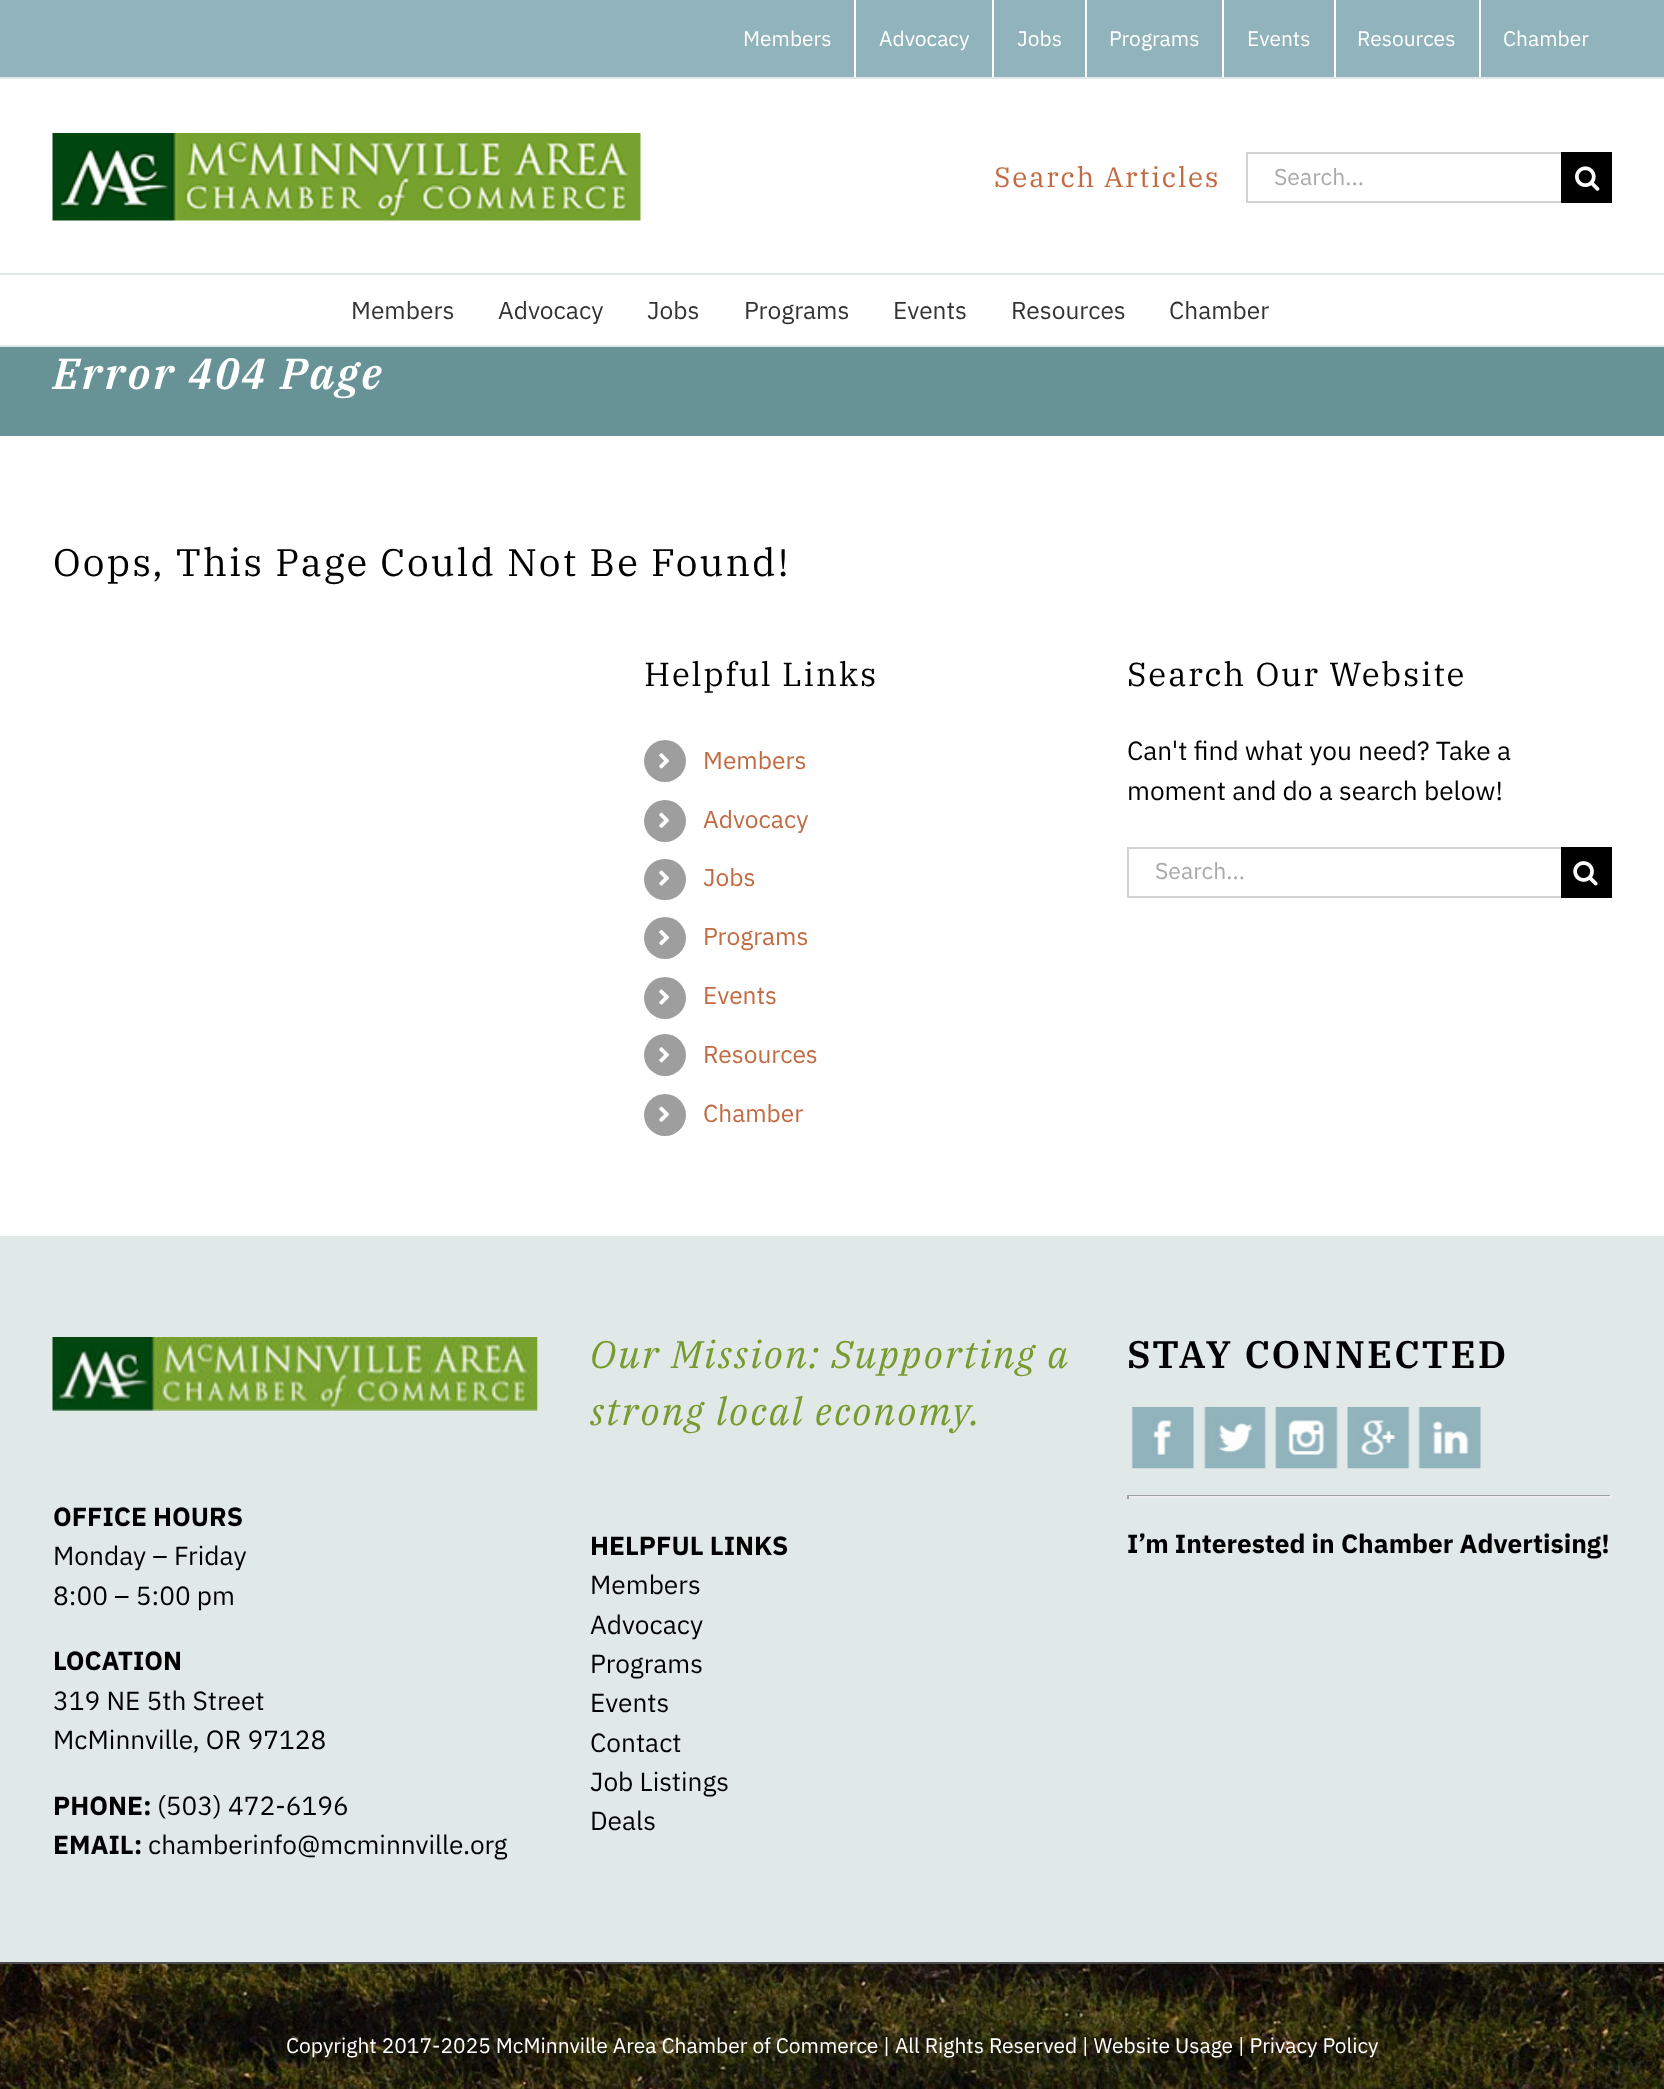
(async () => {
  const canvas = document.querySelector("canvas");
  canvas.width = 1664;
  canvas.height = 2089;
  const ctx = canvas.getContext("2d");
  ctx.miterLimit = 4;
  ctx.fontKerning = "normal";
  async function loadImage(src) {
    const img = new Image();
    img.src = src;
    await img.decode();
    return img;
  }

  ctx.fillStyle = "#ffffff";
  ctx.fillRect(0, 0, 1664, 2089);
  ctx.drawImage(await loadImage("img/1.png"), 0, 1964, 1664, 125);
  for (const [x, y, w, h, color] of [
    [0, 0, 1664, 77, "#91b3bc"],
    [0, 77, 1664, 2, "#e1e8e8"],
    [854, 0, 2, 77, "#ffffff"],
    [992, 0, 2, 77, "#ffffff"],
    [1085, 0, 2, 77, "#ffffff"],
    [1222, 0, 2, 77, "#ffffff"],
    [1334, 0, 2, 77, "#ffffff"],
    [1479, 0, 2, 77, "#ffffff"],
    [0, 273, 1664, 2, "#e1e8e8"],
  ]) {
    ctx.fillStyle = color;
    ctx.fillRect(x, y, w, h);
  }
  ctx.drawImage(await loadImage("img/2.png"), 52, 133, 589, 88);
  for (const [x, y, w, h, color] of [
    [1246, 152, 315, 2, "#d2d2d2"],
    [1246, 201, 315, 2, "#d2d2d2"],
    [1246, 152, 2, 51, "#d2d2d2"],
    [1561, 152, 51, 51, "#000000"],
  ]) {
    ctx.fillStyle = color;
    ctx.fillRect(x, y, w, h);
  }
  ctx.drawImage(await loadImage("img/3.png"), 1575, 166, 25, 25);
  ctx.fillStyle = "#e1e8e8";
  ctx.fillRect(0, 345, 1664, 2);
  ctx.fillStyle = "#679397";
  ctx.fillRect(0, 347, 1664, 89);
  ctx.fillStyle = "#9e9e9e";
  ctx.beginPath();
  ctx.arc(665, 761, 21, 0, Math.PI * 2);
  ctx.fill();
  ctx.drawImage(await loadImage("img/4.png"), 659, 753, 10, 16);
  ctx.beginPath();
  ctx.arc(665, 821, 21, 0, Math.PI * 2);
  ctx.fill();
  ctx.drawImage(await loadImage("img/5.png"), 659, 812, 10, 16);
  ctx.beginPath();
  ctx.roundRect(644, 859, 42, 41, 20.5);
  ctx.fill();
  ctx.drawImage(await loadImage("img/6.png"), 659, 870, 10, 16);
  ctx.beginPath();
  ctx.arc(665, 938, 21, 0, Math.PI * 2);
  ctx.fill();
  ctx.drawImage(await loadImage("img/7.png"), 659, 929, 10, 17);
  ctx.beginPath();
  ctx.arc(665, 998, 21, 0, Math.PI * 2);
  ctx.fill();
  ctx.drawImage(await loadImage("img/6.png"), 659, 989, 10, 16);
  ctx.beginPath();
  ctx.arc(665, 1055, 21, 0, Math.PI * 2);
  ctx.fill();
  ctx.drawImage(await loadImage("img/4.png"), 659, 1047, 10, 16);
  ctx.beginPath();
  ctx.arc(665, 1115, 21, 0, Math.PI * 2);
  ctx.fill();
  ctx.drawImage(await loadImage("img/5.png"), 659, 1106, 10, 16);
  for (const [x, y, w, h, color] of [
    [1127, 847, 434, 2, "#d2d2d2"],
    [1127, 896, 434, 2, "#d2d2d2"],
    [1127, 847, 2, 51, "#d2d2d2"],
    [1561, 847, 51, 51, "#000000"],
  ]) {
    ctx.fillStyle = color;
    ctx.fillRect(x, y, w, h);
  }
  ctx.drawImage(await loadImage("img/8.png"), 1573, 861, 25, 25);
  ctx.fillStyle = "#e1e8e8";
  ctx.fillRect(0, 1236, 1664, 726);
  ctx.drawImage(await loadImage("img/9.png"), 1131, 1407, 63, 62);
  ctx.drawImage(await loadImage("img/10.png"), 1203, 1407, 63, 62);
  ctx.drawImage(await loadImage("img/11.png"), 1275, 1407, 63, 62);
  ctx.drawImage(await loadImage("img/12.png"), 1347, 1407, 63, 62);
  ctx.drawImage(await loadImage("img/13.png"), 1418, 1407, 63, 62);
  for (const [x, y, w, h, color] of [
    [1127, 1495, 485, 1, "#9f9f9f"],
    [1610, 1495, 2, 4, "#eeeeee"],
    [1127, 1496, 485, 2, "#eeeeee"],
    [1127, 1495, 2, 4, "#9f9f9f"],
  ]) {
    ctx.fillStyle = color;
    ctx.fillRect(x, y, w, h);
  }
  ctx.drawImage(await loadImage("img/14.png"), 52, 1337, 486, 74);
  ctx.fillStyle = "#4b4c4d";
  ctx.fillRect(0, 1962, 1664, 2);
  ctx.font = "21px IBM Plex Sans";
  ctx.fillStyle = "#ffffff";
  for (const [text, x, y] of [
    ["Members", 743, 46],
    ["Advocacy", 879, 46],
    ["Jobs", 1017, 46],
    ["Programs", 1109, 46],
    ["Events", 1247, 46],
    ["Resources", 1357, 46],
    ["Chamber", 1503, 46],
  ]) {
    ctx.fillText(text, x, y);
  }
  ctx.letterSpacing = "1.75px";
  ctx.font = "28px IBM Plex Serif";
  ctx.fillStyle = "#c26a42";
  ctx.fillText("Search Articles", 994, 187);
  ctx.letterSpacing = "0px";
  ctx.font = "23px IBM Plex Sans";
  ctx.fillStyle = "#aaa9a9";
  ctx.fillText("Search...", 1274, 185);
  ctx.font = "24.5px IBM Plex Sans";
  ctx.fillStyle = "#333333";
  for (const [text, x, y] of [
    ["Members", 351, 319],
    ["Advocacy", 498, 319],
    ["Jobs", 647, 319],
    ["Programs", 744, 319],
    ["Events", 893, 319],
    ["Resources", 1011, 319],
    ["Chamber", 1169, 319],
  ]) {
    ctx.fillText(text, x, y);
  }
  ctx.letterSpacing = "2.75px";
  ctx.font = "italic 600 43.5px IBM Plex Serif";
  ctx.fillStyle = "#ffffff";
  ctx.fillText("Error 404 Page", 53, 389);
  ctx.letterSpacing = "2.1px";
  ctx.font = "38.5px IBM Plex Serif";
  ctx.fillStyle = "#000000";
  ctx.fillText("Oops, This Page Could Not Be Found!", 53, 576);
  ctx.letterSpacing = "1.75px";
  ctx.font = "33.25px IBM Plex Serif";
  ctx.fillText("Helpful Links", 644, 686);
  ctx.letterSpacing = "0px";
  ctx.font = "24.5px IBM Plex Sans";
  ctx.fillStyle = "#c26a42";
  for (const [text, x, y] of [
    ["Members", 703, 769],
    ["Advocacy", 703, 828],
    ["Jobs", 703, 886],
    ["Programs", 703, 945],
    ["Events", 703, 1004],
    ["Resources", 703, 1063],
    ["Chamber", 703, 1122],
  ]) {
    ctx.fillText(text, x, y);
  }
  ctx.letterSpacing = "1.75px";
  ctx.font = "33.25px IBM Plex Serif";
  ctx.fillStyle = "#000000";
  ctx.fillText("Search Our Website", 1127, 686);
  ctx.letterSpacing = "0px";
  ctx.font = "26.25px IBM Plex Sans";
  ctx.fillText("Can't find what you need? Take a", 1127, 760);
  ctx.fillText("moment and do a search below!", 1127, 800);
  ctx.font = "23px IBM Plex Sans";
  ctx.fillStyle = "#aaa9a9";
  ctx.fillText("Search...", 1155, 879);
  ctx.letterSpacing = "2.1px";
  ctx.font = "italic 38.5px IBM Plex Serif";
  ctx.fillStyle = "#779b2f";
  ctx.fillText("Our Mission: Supporting a", 590, 1368);
  ctx.fillText("strong local economy.", 590, 1425);
  ctx.letterSpacing = "0px";
  ctx.font = "bold 26.25px IBM Plex Sans";
  ctx.fillStyle = "#000000";
  ctx.fillText("HELPFUL LINKS", 590, 1555);
  ctx.font = "26.25px IBM Plex Sans";
  for (const [text, x, y] of [
    ["Members", 590, 1594],
    ["Advocacy", 590, 1634],
    ["Programs", 590, 1673],
    ["Events", 590, 1712],
    ["Contact", 590, 1752],
    ["Job Listings", 590, 1791],
    ["Deals", 590, 1830],
  ]) {
    ctx.fillText(text, x, y);
  }
  ctx.letterSpacing = "2.1px";
  ctx.font = "600 38.5px IBM Plex Serif";
  ctx.fillText("STAY CONNECTED", 1127, 1368);
  ctx.letterSpacing = "0px";
  ctx.font = "bold 26.25px IBM Plex Sans";
  ctx.fillText("I’m Interested in Chamber Advertising!", 1127, 1553);
  ctx.fillText("OFFICE HOURS", 53, 1526);
  ctx.font = "26.25px IBM Plex Sans";
  ctx.fillText("Monday – Friday", 53, 1565);
  ctx.fillText("8:00 – 5:00 pm", 53, 1605);
  ctx.font = "bold 26.25px IBM Plex Sans";
  ctx.fillText("LOCATION", 53, 1670);
  ctx.font = "26.25px IBM Plex Sans";
  ctx.fillText("319 NE 5th Street", 53, 1710);
  ctx.fillText("McMinnville, OR 97128", 53, 1749);
  ctx.font = "bold 26.25px IBM Plex Sans";
  ctx.fillText("PHONE:", 53, 1815);
  ctx.font = "26.25px IBM Plex Sans";
  ctx.fillText("(503) 472-6196", 157, 1815);
  ctx.font = "bold 26.25px IBM Plex Sans";
  ctx.fillText("EMAIL:", 53, 1854);
  ctx.font = "26.25px IBM Plex Sans";
  ctx.fillText("chamberinfo@mcminnville.org", 148, 1854);
  ctx.font = "21px IBM Plex Sans";
  ctx.fillStyle = "#ffffff";
  ctx.fillText("Copyright 2017-2025 McMinnville Area Chamber of Commerce | All Rights Reserved | Website Usage | Privacy Policy", 286, 2053);
})();
